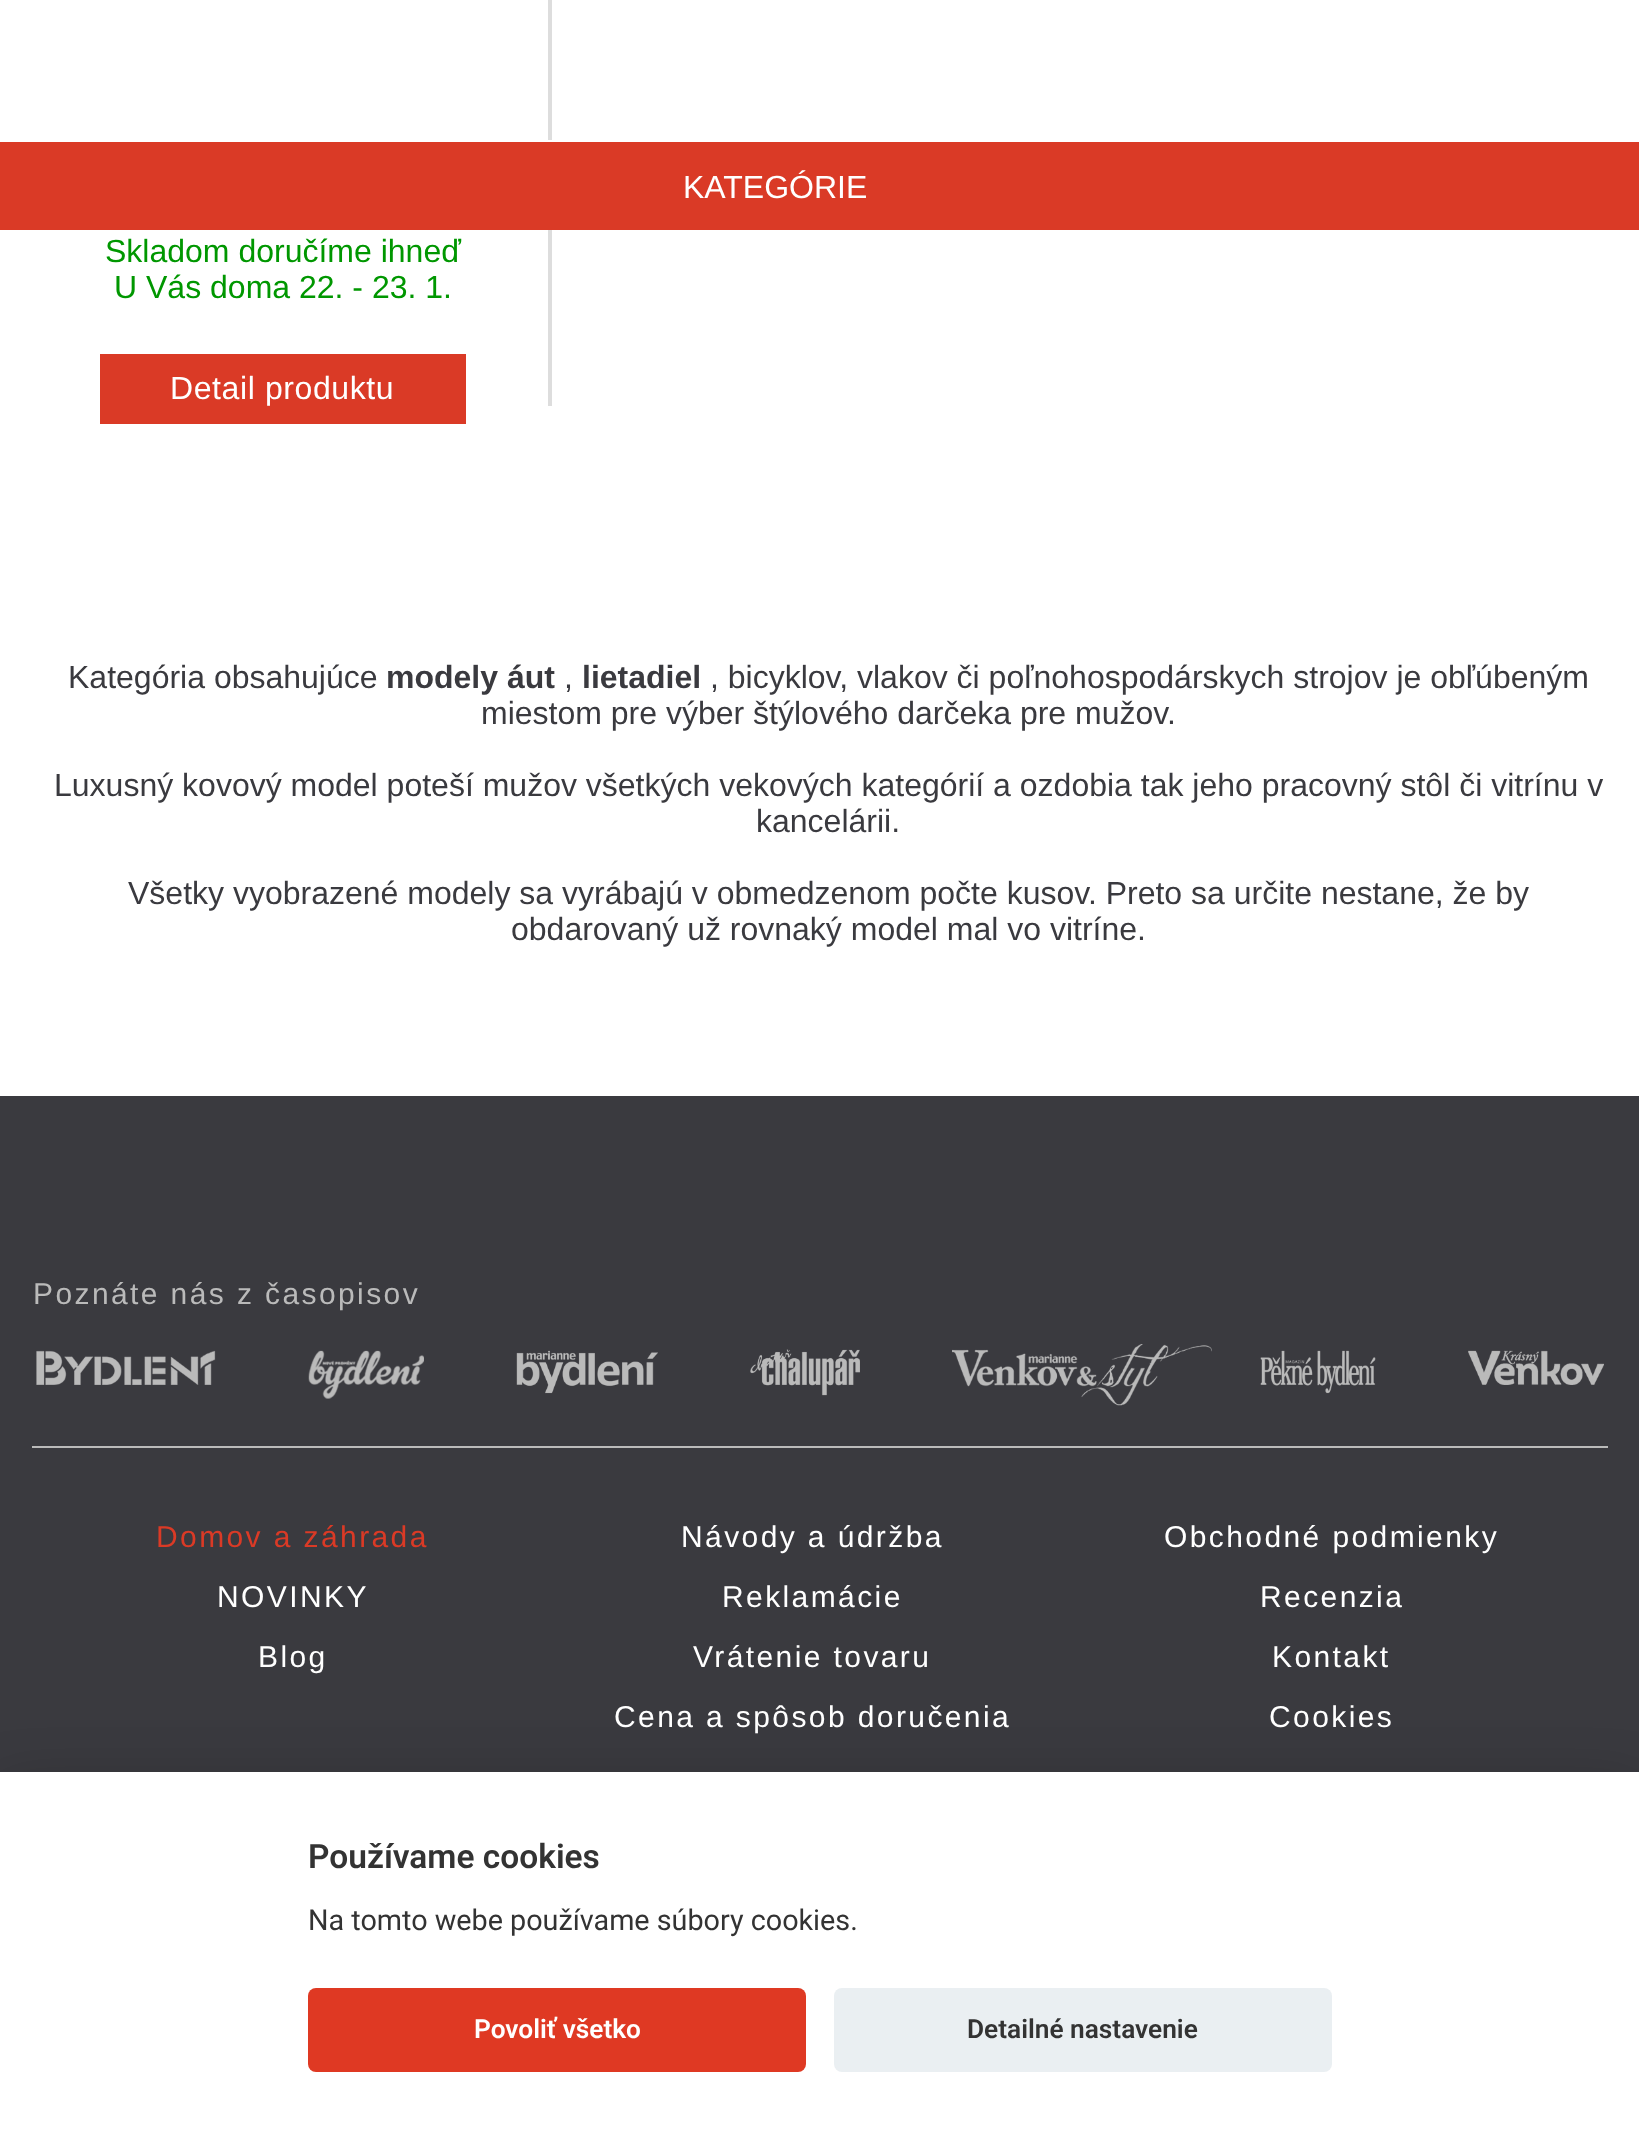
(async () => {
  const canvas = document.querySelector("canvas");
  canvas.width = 1639;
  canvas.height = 2135;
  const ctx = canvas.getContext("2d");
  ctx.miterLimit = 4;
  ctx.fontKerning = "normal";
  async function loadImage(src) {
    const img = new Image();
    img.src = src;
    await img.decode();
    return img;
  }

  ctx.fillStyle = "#ffffff";
  ctx.fillRect(0, 0, 1639, 2135);
  for (const [x, y, w, h, color] of [
    [548, 0, 4, 406, "#dddddd"],
    [0, 142, 1639, 88, "#da3a26"],
    [548, 140, 4, 2, "#ffffff"],
    [100, 354, 366, 70, "#da3a26"],
    [0, 1096, 1639, 676, "#3a3a3f"],
    [32, 1446, 1576, 2, "#bababa"],
  ]) {
    ctx.fillStyle = color;
    ctx.fillRect(x, y, w, h);
  }
  ctx.drawImage(await loadImage("img/1.png"), 36, 1350, 180, 35);
  ctx.drawImage(await loadImage("img/2.png"), 308, 1350, 116, 49);
  ctx.drawImage(await loadImage("img/3.png"), 516, 1350, 142, 44);
  ctx.drawImage(await loadImage("img/4.png"), 750, 1349, 110, 47);
  ctx.drawImage(await loadImage("img/5.png"), 952, 1344, 260, 62);
  ctx.drawImage(await loadImage("img/6.png"), 1260, 1350, 116, 44);
  ctx.drawImage(await loadImage("img/7.png"), 1468, 1350, 136, 35);
  ctx.fillStyle = "rgba(2, 2, 3, 0.28)";
  ctx.filter = "blur(30px)";
  ctx.beginPath();
  ctx.rect(0, 1792, 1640, 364);
  ctx.fill();
  ctx.filter = "none";
  ctx.fillStyle = "#ffffff";
  ctx.fillRect(0, 1772, 1639, 363);
  ctx.fillStyle = "#df3923";
  ctx.beginPath();
  ctx.roundRect(308, 1988, 498, 84, 8);
  ctx.fill();
  ctx.fillStyle = "#eaeff2";
  ctx.beginPath();
  ctx.roundRect(834, 1988, 498, 84, 8);
  ctx.fill();
  ctx.font = "32px Liberation Sans";
  ctx.fillStyle = "#ffffff";
  ctx.fillText("KATEGÓRIE", 683, 198);
  ctx.fillStyle = "#009700";
  ctx.fillText("Skladom doručíme ihneď", 105, 262);
  ctx.fillText("U Vás doma 22. - 23. 1.", 114, 298);
  ctx.letterSpacing = "0.6px";
  ctx.fillStyle = "#ffffff";
  ctx.fillText("Detail produktu", 170, 399);
  ctx.letterSpacing = "0px";
  ctx.fillStyle = "#3a3a3f";
  ctx.fillText("Kategória obsahujúce", 68, 688);
  ctx.font = "bold 32px Liberation Sans";
  ctx.fillText("modely áut", 386, 688);
  ctx.font = "32px Liberation Sans";
  ctx.fillText(",", 564, 688);
  ctx.font = "bold 32px Liberation Sans";
  ctx.fillText("lietadiel", 582, 688);
  ctx.font = "32px Liberation Sans";
  for (const [text, x, y] of [
    [", bicyklov, vlakov či poľnohospodárskych strojov je obľúbeným", 710, 688],
    ["miestom pre výber štýlového darčeka pre mužov.", 481, 724],
    ["Luxusný kovový model poteší mužov všetkých vekových kategórií a ozdobia tak jeho pracovný stôl či vitrínu v", 54, 796],
    ["kancelárii.", 756, 832],
    ["Všetky vyobrazené modely sa vyrábajú v obmedzenom počte kusov. Preto sa určite nestane, že by", 128, 904],
    ["obdarovaný už rovnaký model mal vo vitríne.", 511, 940],
  ]) {
    ctx.fillText(text, x, y);
  }
  ctx.letterSpacing = "2.4px";
  ctx.font = "30px Liberation Sans";
  ctx.fillStyle = "#bababa";
  ctx.fillText("Poznáte nás z časopisov", 33, 1304);
  ctx.fillStyle = "#da3a26";
  ctx.fillText("Domov a záhrada", 156, 1547);
  ctx.fillStyle = "#ffffff";
  for (const [text, x, y] of [
    ["NOVINKY", 217, 1607],
    ["Blog", 258, 1667],
    ["Návody a údržba", 681, 1547],
    ["Reklamácie", 722, 1607],
    ["Vrátenie tovaru", 693, 1667],
    ["Cena a spôsob doručenia", 614, 1727],
    ["Obchodné podmienky", 1164, 1547],
    ["Recenzia", 1260, 1607],
    ["Kontakt", 1272, 1667],
    ["Cookies", 1269, 1727],
  ]) {
    ctx.fillText(text, x, y);
  }
  ctx.letterSpacing = "0px";
  ctx.font = "600 33.5px Roboto";
  ctx.fillStyle = "#333333";
  ctx.fillText("Používame cookies", 308, 1868);
  ctx.font = "28.75px Roboto";
  ctx.fillText("Na tomto webe používame súbory cookies.", 308, 1930);
  ctx.font = "600 26.25px Roboto";
  ctx.fillStyle = "#ffffff";
  ctx.fillText("Povoliť všetko", 474, 2038);
  ctx.fillStyle = "#333333";
  ctx.fillText("Detailné nastavenie", 967, 2038);
})();
